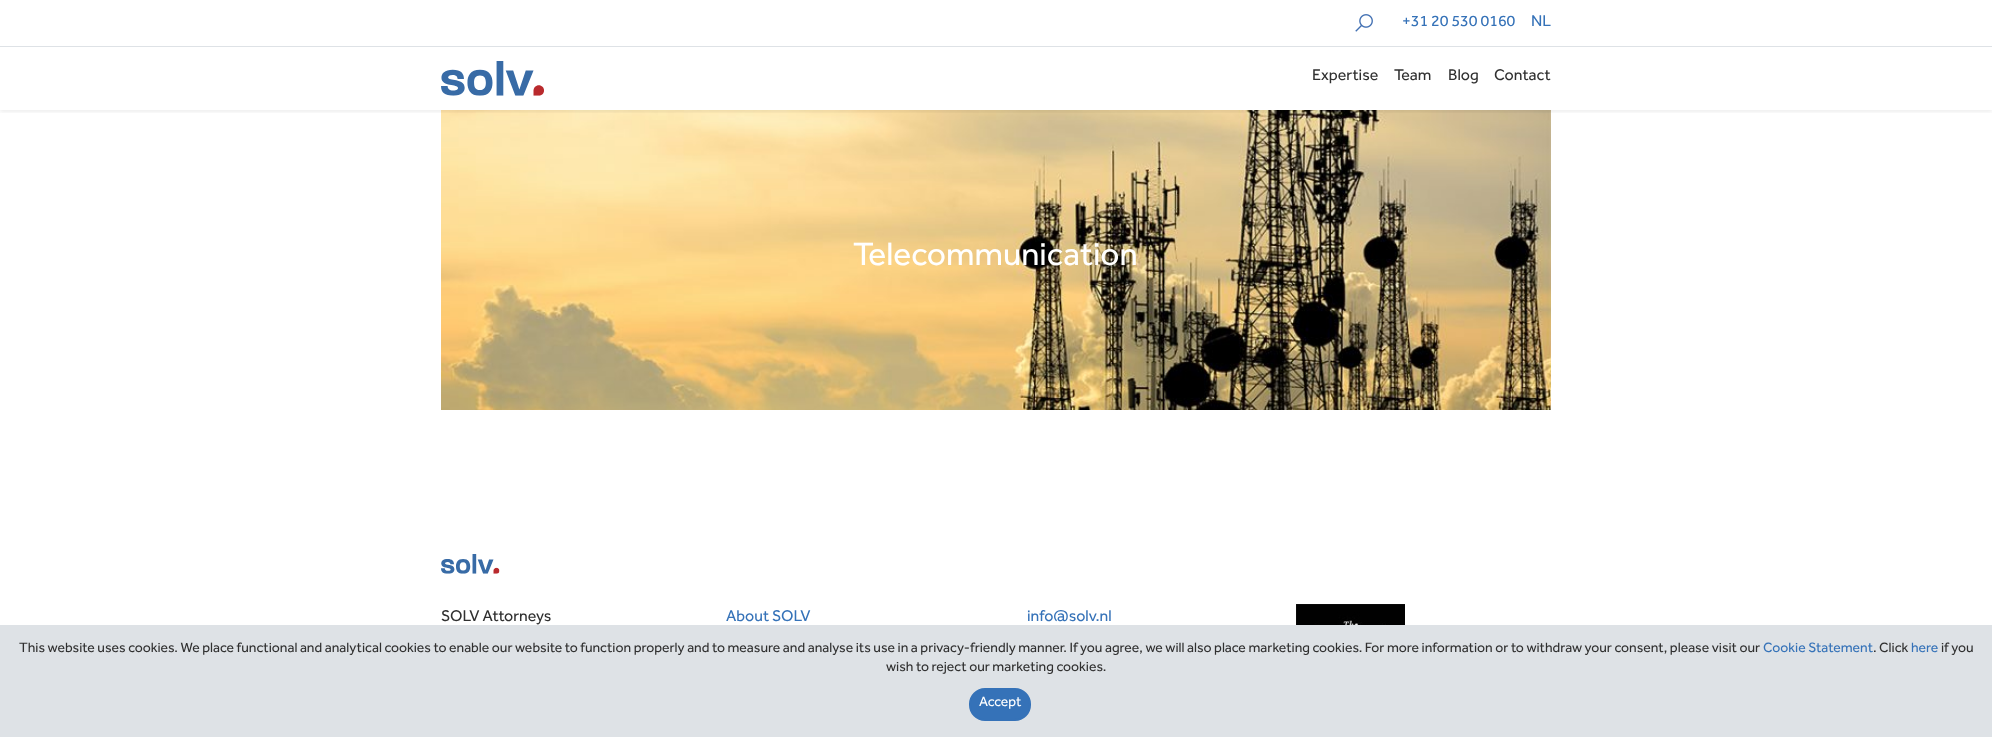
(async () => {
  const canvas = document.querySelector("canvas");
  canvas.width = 1992;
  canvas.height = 737;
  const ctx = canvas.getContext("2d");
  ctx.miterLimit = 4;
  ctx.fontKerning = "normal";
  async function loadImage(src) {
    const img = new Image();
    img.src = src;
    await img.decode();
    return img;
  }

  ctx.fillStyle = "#ffffff";
  ctx.fillRect(0, 0, 1992, 737);
  ctx.fillStyle = "#dee2e6";
  ctx.fillRect(0, 46, 1992, 1);
  ctx.drawImage(await loadImage("img/1.png"), 1355, 14, 18, 18);
  ctx.drawImage(await loadImage("img/3.png"), 441, 110, 1110, 300);
  ctx.save();
  ctx.beginPath();
  ctx.rect(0, 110, 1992, 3);
  ctx.clip();
  ctx.fillStyle = "rgba(0, 0, 0, 0.07)";
  ctx.filter = "blur(2px)";
  ctx.beginPath();
  ctx.rect(0, 49, 1992, 63);
  ctx.fill();
  ctx.filter = "none";
  ctx.restore();
  ctx.drawImage(await loadImage("img/2.png"), 441, 61, 103, 35);
  ctx.drawImage(await loadImage("img/4.png"), 441, 554, 59, 20);
  ctx.drawImage(await loadImage("img/5.png"), 1296, 604, 109, 21);
  ctx.fillRect(0, 625, 1992, 112);
  ctx.fillStyle = "#3572b8";
  ctx.beginPath();
  ctx.roundRect(970, 689, 60, 31, 15);
  ctx.fill();
  ctx.strokeStyle = "#3572b8";
  ctx.lineWidth = 2;
  ctx.stroke();
  ctx.font = "16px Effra";
  ctx.fillText("+31 20 530 0160", 1402, 26);
  ctx.fillText("NL", 1531, 26);
  ctx.fillStyle = "#303030";
  for (const [text, x, y] of [
    ["Expertise", 1312, 80],
    ["Team", 1394, 80],
    ["Blog", 1448, 80],
    ["Contact", 1494, 80],
  ]) {
    ctx.fillText(text, x, y);
  }
  ctx.font = "33.5px Effra";
  ctx.fillStyle = "#ffffff";
  ctx.fillText("Telecommunication", 853, 265);
  ctx.font = "16px Effra";
  ctx.fillStyle = "#303030";
  ctx.fillText("SOLV Attorneys", 441, 621);
  ctx.fillStyle = "#3572b8";
  ctx.fillText("About SOLV", 726, 621);
  ctx.fillText("info@solv.nl", 1027, 621);
  ctx.font = "14px Effra";
  ctx.fillStyle = "#303030";
  ctx.fillText("This website uses cookies. We place functional and analytical cookies to enable our website to function properly and to measure and analyse its use in a privacy-friendly manner. If you agree, we will also place marketing cookies. For more information or to withdraw your consent, please visit our", 19, 652);
  ctx.fillStyle = "#3572b8";
  ctx.fillText("Cookie Statement", 1763, 652);
  ctx.fillStyle = "#303030";
  ctx.fillText(". Click", 1873, 652);
  ctx.fillStyle = "#3572b8";
  ctx.fillText("here", 1911, 652);
  ctx.fillStyle = "#303030";
  ctx.fillText("if you", 1941, 652);
  ctx.fillText("wish to reject our marketing cookies.", 886, 671);
  ctx.fillStyle = "#ffffff";
  ctx.fillText("Accept", 979, 706);
})();
